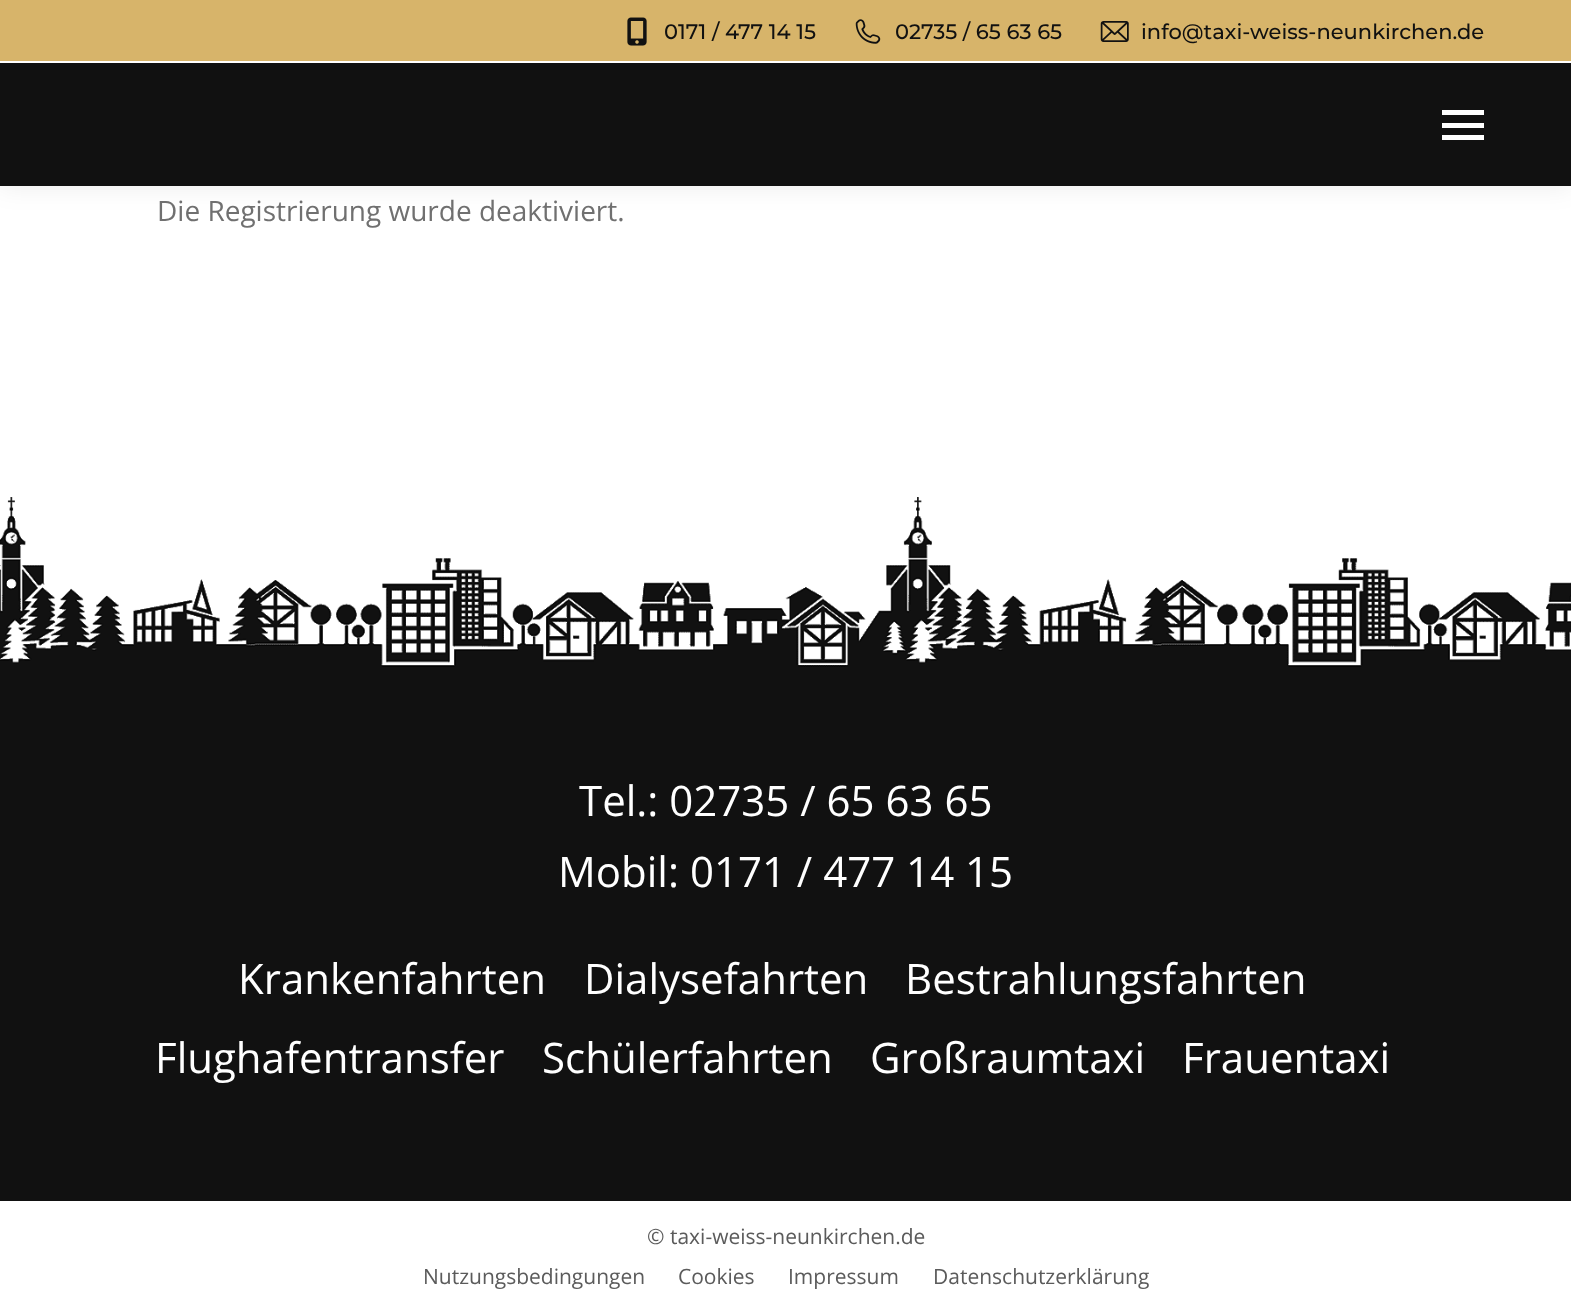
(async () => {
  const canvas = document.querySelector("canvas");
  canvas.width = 1571;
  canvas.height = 1310;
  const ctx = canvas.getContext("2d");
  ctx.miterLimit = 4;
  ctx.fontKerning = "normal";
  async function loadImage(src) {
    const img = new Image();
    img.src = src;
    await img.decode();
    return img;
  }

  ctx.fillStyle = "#ffffff";
  ctx.fillRect(0, 0, 1571, 1310);
  ctx.fillStyle = "rgba(0, 0, 0, 0.07)";
  ctx.filter = "blur(13px)";
  ctx.beginPath();
  ctx.rect(-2, -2, 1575, 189);
  ctx.fill();
  ctx.filter = "none";
  ctx.fillStyle = "#111111";
  ctx.fillRect(0, 63, 1571, 123);
  ctx.fillStyle = "#d7b46a";
  ctx.fillRect(0, 0, 1571, 61);
  ctx.drawImage(await loadImage("img/1.png"), 627, 17, 20, 29);
  ctx.drawImage(await loadImage("img/2.png"), 855, 19, 26, 25);
  ctx.drawImage(await loadImage("img/3.png"), 1100, 21, 29, 21);
  for (const [x, y, w, h, color] of [
    [0, 61, 1571, 2, "#ffffff"],
    [1442, 110, 42, 5, "#ffffff"],
    [1442, 123, 42, 5, "#ffffff"],
    [1442, 135, 42, 5, "#ffffff"],
    [0, 672, 1571, 529, "#111111"],
  ]) {
    ctx.fillStyle = color;
    ctx.fillRect(x, y, w, h);
  }
  ctx.drawImage(await loadImage("img/4.png"), 0, 497, 1571, 175);
  ctx.font = "500 21px Montserrat";
  for (const [text, x, y] of [
    ["0171 / 477 14 15", 664, 39],
    ["02735 / 65 63 65", 895, 39],
    ["info@taxi-weiss-neunkirchen.de", 1141, 39],
  ]) {
    ctx.fillText(text, x, y);
  }
  ctx.font = "28px Open Sans";
  ctx.fillStyle = "#707070";
  ctx.fillText("Die Registrierung wurde deaktiviert.", 157, 221);
  ctx.font = "42px Open Sans";
  ctx.fillStyle = "#ffffff";
  for (const [text, x, y] of [
    ["Tel.: 02735 / 65 63 65", 579, 816],
    ["Mobil: 0171 / 477 14 15", 558, 887],
    ["Krankenfahrten", 238, 994],
    ["Dialysefahrten", 584, 994],
    ["Bestrahlungsfahrten", 905, 994],
    ["Flughafentransfer", 155, 1073],
    ["Schülerfahrten", 542, 1073],
    ["Großraumtaxi", 870, 1073],
    ["Frauentaxi", 1182, 1073],
  ]) {
    ctx.fillText(text, x, y);
  }
  ctx.font = "21px Open Sans";
  ctx.fillStyle = "#5b5b5b";
  for (const [text, x, y] of [
    ["© taxi-weiss-neunkirchen.de", 647, 1244],
    ["Nutzungsbedingungen", 423, 1284],
    ["Cookies", 678, 1284],
    ["Impressum", 788, 1284],
    ["Datenschutzerklärung", 933, 1284],
  ]) {
    ctx.fillText(text, x, y);
  }
})();
